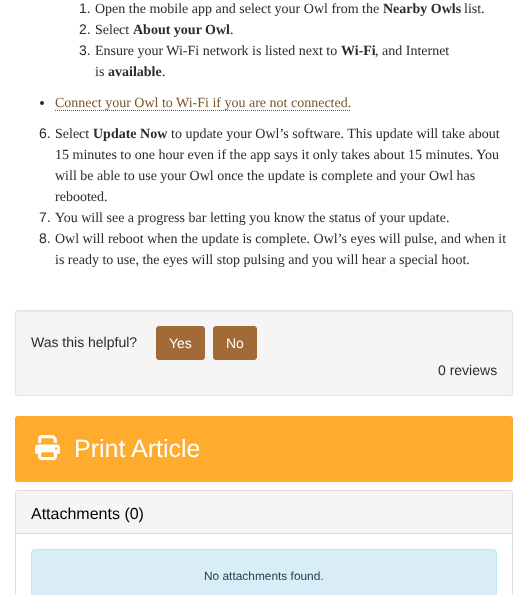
(async () => {
  const canvas = document.querySelector("canvas");
  canvas.width = 528;
  canvas.height = 595;
  const ctx = canvas.getContext("2d");
  ctx.miterLimit = 4;
  ctx.fontKerning = "normal";
  async function loadImage(src) {
    const img = new Image();
    img.src = src;
    await img.decode();
    return img;
  }
  let path;

  ctx.fillStyle = "#ffffff";
  ctx.fillRect(0, 0, 528, 595);
  ctx.fillStyle = "#2b2b2b";
  ctx.beginPath();
  ctx.arc(42, 103, 2, 0, Math.PI * 2);
  ctx.fill();
  path = new Path2D("M55 110.5H351");
  ctx.strokeStyle = "#7c5531";
  ctx.setLineDash([1, 1]);
  ctx.stroke(path);
  ctx.fillStyle = "#f5f5f5";
  ctx.beginPath();
  ctx.roundRect(15, 310, 498, 86, 3);
  ctx.fill();
  ctx.fillStyle = "#e9e9e9";
  path = new Path2D("M18 312H510C511 312 512 313 512 314V313C512 312 511 311 510 311H18C17 311 16 312 16 313V314C16 313 17 312 18 312Z");
  ctx.fill(path);
  ctx.beginPath();
  ctx.roundRect(15.5, 310.5, 497, 85, 2.5);
  ctx.strokeStyle = "#e3e3e3";
  ctx.setLineDash([]);
  ctx.stroke();
  ctx.fillStyle = "#a26a37";
  ctx.beginPath();
  ctx.roundRect(156.5, 326.5, 48, 33, 2.5);
  ctx.fill();
  ctx.strokeStyle = "#a26a37";
  ctx.stroke();
  ctx.beginPath();
  ctx.roundRect(213.5, 326.5, 43, 33, 2.5);
  ctx.fill();
  ctx.stroke();
  ctx.fillStyle = "#ffab2e";
  ctx.beginPath();
  ctx.roundRect(15, 416, 498, 66, 3);
  ctx.fill();
  ctx.drawImage(await loadImage("img/1.png"), 35, 435, 25, 26);
  ctx.beginPath();
  ctx.roundRect(15.5, 490.5, 497, 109, 3.5);
  ctx.strokeStyle = "#dddddd";
  ctx.stroke();
  ctx.fillStyle = "#f5f5f5";
  ctx.beginPath();
  ctx.roundRect(16, 491, 496, 43, [3, 3, 0, 0]);
  ctx.fill();
  ctx.fillStyle = "#dddddd";
  ctx.fillRect(16, 533, 496, 1);
  ctx.fillStyle = "#d9edf7";
  ctx.beginPath();
  ctx.roundRect(31.5, 549.5, 465, 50, 3.5);
  ctx.fill();
  ctx.strokeStyle = "#bce8f1";
  ctx.stroke();
  ctx.font = "14px Liberation Sans";
  ctx.fillStyle = "#2b2b2b";
  ctx.fillText("1.", 79, 13);
  ctx.font = "14px Liberation Serif";
  ctx.fillText("Open the mobile app and select your Owl from the", 95, 13);
  ctx.font = "bold 14px Liberation Serif";
  ctx.fillText("Nearby Owls", 383, 13);
  ctx.font = "14px Liberation Serif";
  ctx.fillText("list.", 464, 13);
  ctx.font = "14px Liberation Sans";
  ctx.fillText("2.", 79, 34);
  ctx.font = "14px Liberation Serif";
  ctx.fillText("Select", 95, 34);
  ctx.font = "bold 14px Liberation Serif";
  ctx.fillText("About your Owl", 133, 34);
  ctx.font = "14px Liberation Serif";
  ctx.fillText(".", 230, 34);
  ctx.font = "14px Liberation Sans";
  ctx.fillText("3.", 79, 55);
  ctx.font = "14px Liberation Serif";
  ctx.fillText("Ensure your Wi-Fi network is listed next to", 95, 55);
  ctx.font = "bold 14px Liberation Serif";
  ctx.fillText("Wi-Fi", 341, 55);
  ctx.font = "14px Liberation Serif";
  ctx.fillText(", and Internet", 375, 55);
  ctx.fillText("is", 95, 76);
  ctx.font = "bold 14px Liberation Serif";
  ctx.fillText("available", 108, 76);
  ctx.font = "14px Liberation Serif";
  ctx.fillText(".", 162, 76);
  ctx.fillStyle = "#7c5531";
  ctx.fillText("Connect your Owl to Wi-Fi if you are not connected.", 55, 107);
  ctx.font = "14px Liberation Sans";
  ctx.fillStyle = "#2b2b2b";
  ctx.fillText("6.", 39, 138);
  ctx.font = "14px Liberation Serif";
  ctx.fillText("Select", 55, 138);
  ctx.font = "bold 14px Liberation Serif";
  ctx.fillText("Update Now", 93, 138);
  ctx.font = "14px Liberation Serif";
  for (const [text, x, y] of [
    ["to update your Owl’s software. This update will take about", 171, 138],
    ["15 minutes to one hour even if the app says it only takes about 15 minutes. You", 55, 159],
    ["will be able to use your Owl once the update is complete and your Owl has", 55, 180],
    ["rebooted.", 55, 201],
  ]) {
    ctx.fillText(text, x, y);
  }
  ctx.font = "14px Liberation Sans";
  ctx.fillText("7.", 39, 222);
  ctx.font = "14px Liberation Serif";
  ctx.fillText("You will see a progress bar letting you know the status of your update.", 55, 222);
  ctx.font = "14px Liberation Sans";
  ctx.fillText("8.", 39, 243);
  ctx.font = "14px Liberation Serif";
  ctx.fillText("Owl will reboot when the update is complete. Owl’s eyes will pulse, and when it", 55, 243);
  ctx.fillText("is ready to use, the eyes will stop pulsing and you will hear a special hoot.", 55, 264);
  ctx.font = "14px Liberation Sans";
  ctx.fillText("Was this helpful?", 31, 347);
  ctx.fillStyle = "#ffffff";
  ctx.fillText("Yes", 169, 348);
  ctx.fillText("No", 226, 348);
  ctx.fillStyle = "#2b2b2b";
  ctx.fillText("0 reviews", 438, 375);
  ctx.font = "25px Liberation Sans";
  ctx.fillStyle = "#ffffff";
  ctx.fillText("Print Article", 74, 457);
  ctx.font = "16px Liberation Sans";
  ctx.fillStyle = "#000000";
  ctx.fillText("Attachments (0)", 31, 519);
  ctx.font = "11.9px Liberation Sans";
  ctx.fillStyle = "#1d4356";
  ctx.fillText("No attachments found.", 204, 580);
})();
